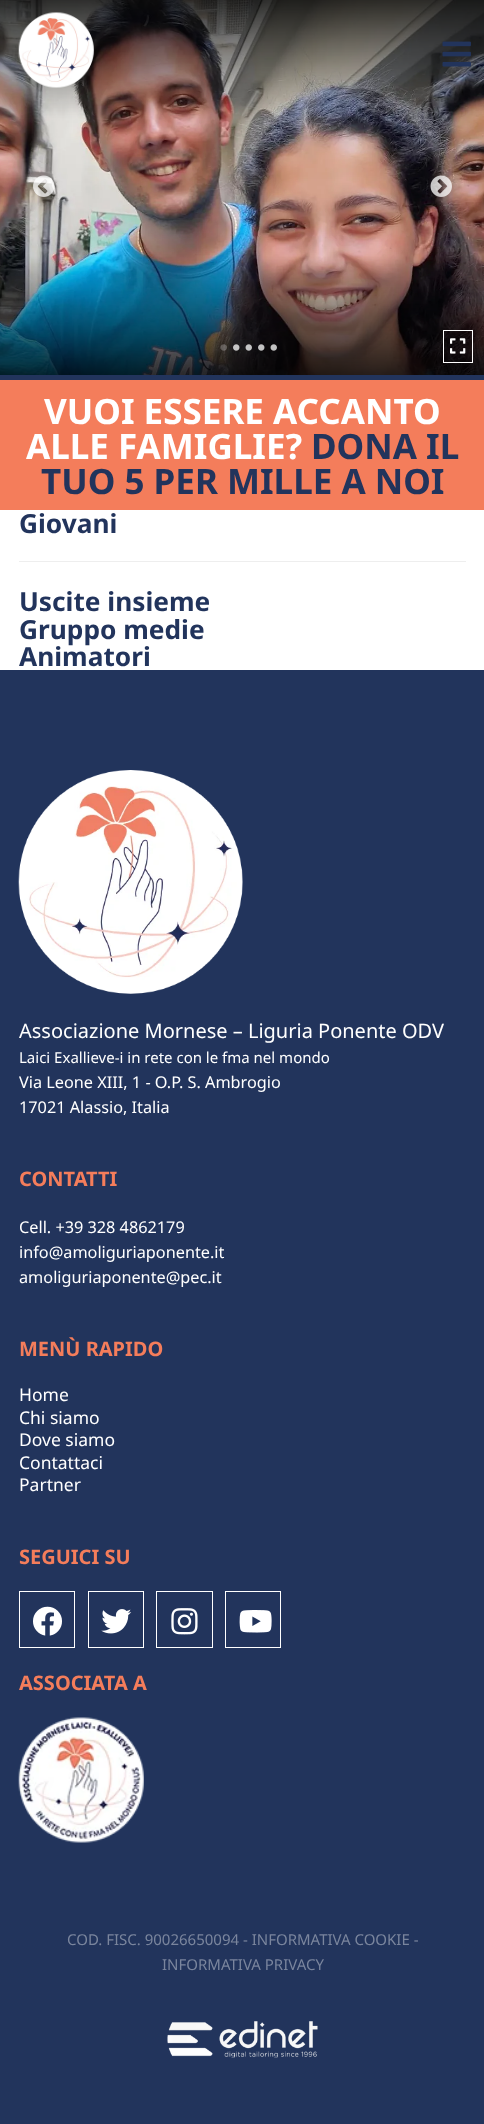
(async () => {
  const canvas = document.querySelector("canvas");
  canvas.width = 484;
  canvas.height = 2124;
  const ctx = canvas.getContext("2d");
  ctx.miterLimit = 4;
  ctx.fontKerning = "normal";
  async function loadImage(src) {
    const img = new Image();
    img.src = src;
    await img.decode();
    return img;
  }

  ctx.fillStyle = "#ffffff";
  ctx.fillRect(0, 0, 484, 2124);
  ctx.fillStyle = "#22345c";
  ctx.fillRect(0, 375, 484, 5);
  ctx.drawImage(await loadImage("img/1.png"), 0, 0, 484, 375);
  ctx.strokeStyle = "#ffffff";
  ctx.strokeRect(443.5, 330.5, 29, 32);
  ctx.drawImage(await loadImage("img/2.png"), 450, 338, 16, 16);
  ctx.drawImage(await loadImage("img/3.png"), 33, 175, 22, 22);
  ctx.drawImage(await loadImage("img/4.png"), 430, 175, 22, 22);
  ctx.drawImage(await loadImage("img/5.png"), 220, 344, 7, 7);
  ctx.drawImage(await loadImage("img/6.png"), 233, 344, 7, 7);
  ctx.drawImage(await loadImage("img/7.png"), 245, 344, 7, 7);
  ctx.drawImage(await loadImage("img/8.png"), 258, 344, 7, 7);
  ctx.drawImage(await loadImage("img/9.png"), 270, 344, 7, 7);
  ctx.drawImage(await loadImage("img/10.png"), 18, 12, 76, 76);
  ctx.drawImage(await loadImage("img/11.png"), 442, 41, 29, 26);
  for (const [x, y, w, h, color] of [
    [0, 380, 484, 130, "#f47d5b"],
    [19, 561, 447, 1, "#eeeeee"],
    [0, 670, 484, 1454, "#22345c"],
  ]) {
    ctx.fillStyle = color;
    ctx.fillRect(x, y, w, h);
  }
  ctx.drawImage(await loadImage("img/12.png"), 18, 770, 225, 224);
  ctx.strokeRect(19.5, 1591.5, 55, 56);
  ctx.drawImage(await loadImage("img/13.png"), 33, 1606, 29, 30);
  ctx.strokeRect(88.5, 1591.5, 55, 56);
  ctx.drawImage(await loadImage("img/14.png"), 101, 1609, 31, 25);
  ctx.strokeRect(156.5, 1591.5, 56, 56);
  ctx.drawImage(await loadImage("img/15.png"), 171, 1608, 27, 27);
  ctx.strokeRect(225.5, 1591.5, 55, 56);
  ctx.drawImage(await loadImage("img/16.png"), 239, 1610, 33, 23);
  ctx.drawImage(await loadImage("img/17.png"), 18, 1717, 126, 126);
  ctx.drawImage(await loadImage("img/18.png"), 167, 2021, 151, 37);
  ctx.font = "bold 35px Noto Sans";
  ctx.fillStyle = "#ffffff";
  ctx.fillText("VUOI ESSERE ACCANTO", 44, 424);
  ctx.fillText("ALLE FAMIGLIE?", 26, 459);
  ctx.fillStyle = "#22345c";
  ctx.fillText("DONA IL", 311, 459);
  ctx.fillText("TUO 5 PER MILLE A NOI", 41, 494);
  ctx.font = "bold 26.25px Noto Sans";
  for (const [text, x, y] of [
    ["Giovani", 19, 533],
    ["Uscite insieme", 19, 611],
    ["Gruppo medie", 19, 639],
    ["Animatori", 19, 666],
  ]) {
    ctx.fillText(text, x, y);
  }
  ctx.font = "20px Noto Sans";
  ctx.fillStyle = "#ffffff";
  ctx.fillText("Associazione Mornese – Liguria Ponente ODV", 19, 1038);
  ctx.font = "15px Noto Sans";
  ctx.fillText("Laici Exallieve-i in rete con le fma nel mondo", 19, 1063);
  ctx.font = "16.25px Noto Sans";
  ctx.fillText("Via Leone XIII, 1 - O.P. S. Ambrogio", 19, 1088);
  ctx.fillText("17021 Alassio, Italia", 19, 1113);
  ctx.font = "bold 20px Noto Sans";
  ctx.fillStyle = "#f47d5b";
  ctx.fillText("CONTATTI", 19, 1186);
  ctx.font = "16.25px Noto Sans";
  ctx.fillStyle = "#ffffff";
  for (const [text, x, y] of [
    ["Cell. +39 328 4862179", 19, 1233],
    ["info@amoliguriaponente.it", 19, 1258],
    ["amoliguriaponente@pec.it", 19, 1283],
  ]) {
    ctx.fillText(text, x, y);
  }
  ctx.font = "bold 20px Noto Sans";
  ctx.fillStyle = "#f47d5b";
  ctx.fillText("MENÙ RAPIDO", 19, 1356);
  ctx.font = "17.5px Noto Sans";
  ctx.fillStyle = "#ffffff";
  for (const [text, x, y] of [
    ["Home", 19, 1401],
    ["Chi siamo", 19, 1424],
    ["Dove siamo", 19, 1446],
    ["Contattaci", 19, 1469],
    ["Partner", 19, 1491],
  ]) {
    ctx.fillText(text, x, y);
  }
  ctx.font = "bold 20px Noto Sans";
  ctx.fillStyle = "#f47d5b";
  ctx.fillText("SEGUICI SU", 19, 1564);
  ctx.fillText("ASSOCIATA A", 19, 1690);
  ctx.font = "15px Noto Sans";
  ctx.fillStyle = "#7a859d";
  ctx.fillText("COD. FISC. 90026650094 - INFORMATIVA COOKIE -", 67, 1945);
  ctx.fillText("INFORMATIVA PRIVACY", 162, 1970);
})();
